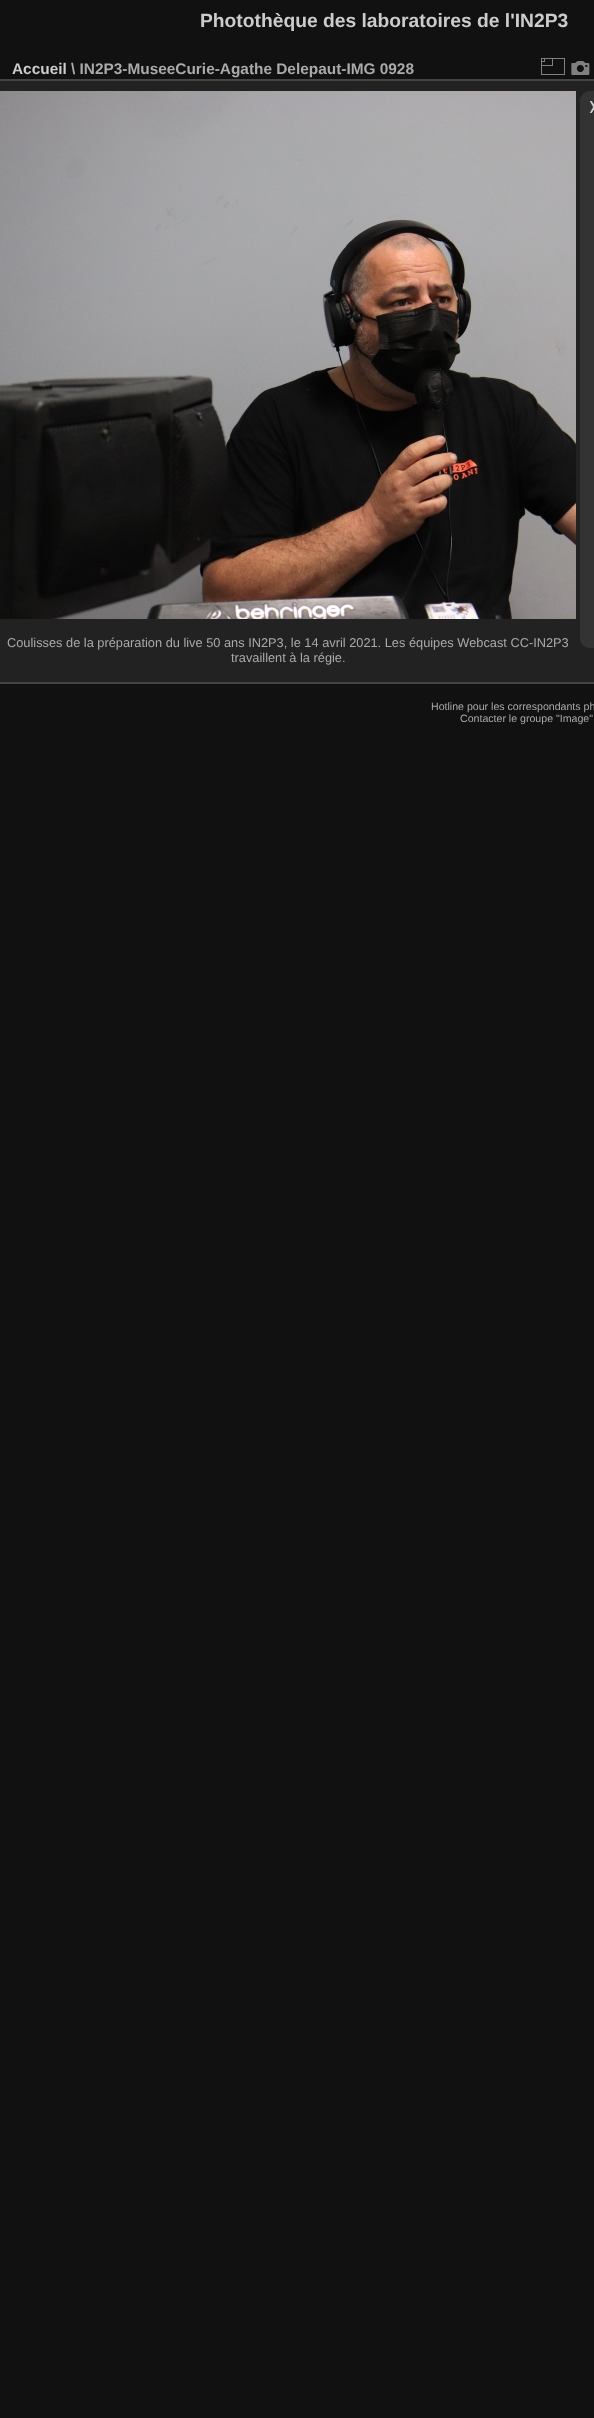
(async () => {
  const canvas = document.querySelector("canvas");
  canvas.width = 594;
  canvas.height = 2418;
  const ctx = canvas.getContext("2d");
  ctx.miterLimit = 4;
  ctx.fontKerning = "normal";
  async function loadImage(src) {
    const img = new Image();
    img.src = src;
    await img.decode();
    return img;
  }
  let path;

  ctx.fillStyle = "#111111";
  ctx.fillRect(0, 0, 594, 2418);
  for (const [x, y, w, h, color] of [
    [0, 81, 594, 601, "#222222"],
    [0, 682, 594, 2, "#444444"],
    [0, 79, 594, 2, "#444444"],
  ]) {
    ctx.fillStyle = color;
    ctx.fillRect(x, y, w, h);
  }
  ctx.drawImage(await loadImage("img/1.png"), 541, 58, 24, 17);
  ctx.drawImage(await loadImage("img/2.png"), 571, 61, 19, 14);
  ctx.fillStyle = "#333333";
  path = new Path2D("M590 91H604V648H590C584.5 648 580 643.5 580 638V101C580 95.5 584.5 91 590 91Z");
  ctx.fill(path);
  ctx.drawImage(await loadImage("img/3.png"), 589, 101, 5, 12);
  ctx.drawImage(await loadImage("img/4.png"), 0, 91, 576, 528);
  ctx.font = "bold 19.25px Liberation Sans";
  ctx.fillStyle = "#cccccc";
  ctx.fillText("Photothèque des laboratoires de l'IN2P3", 200, 27);
  ctx.font = "bold 15.4px Liberation Sans";
  ctx.fillText("Accueil", 12, 74);
  ctx.fillStyle = "#aaaaaa";
  ctx.fillText("\\ IN2P3-MuseeCurie-Agathe Delepaut-IMG 0928", 71, 74);
  ctx.font = "12.8px Liberation Sans";
  ctx.fillText("Coulisses de la préparation du live 50 ans IN2P3, le 14 avril 2021. Les équipes Webcast CC-IN2P3", 7, 647);
  ctx.fillText("travaillent à la régie.", 231, 662);
  ctx.font = "10.6px Liberation Sans";
  ctx.fillText("Hotline pour les correspondants ph", 431, 710);
  ctx.fillText("Contacter le groupe \"Image\"", 460, 722);
})();
